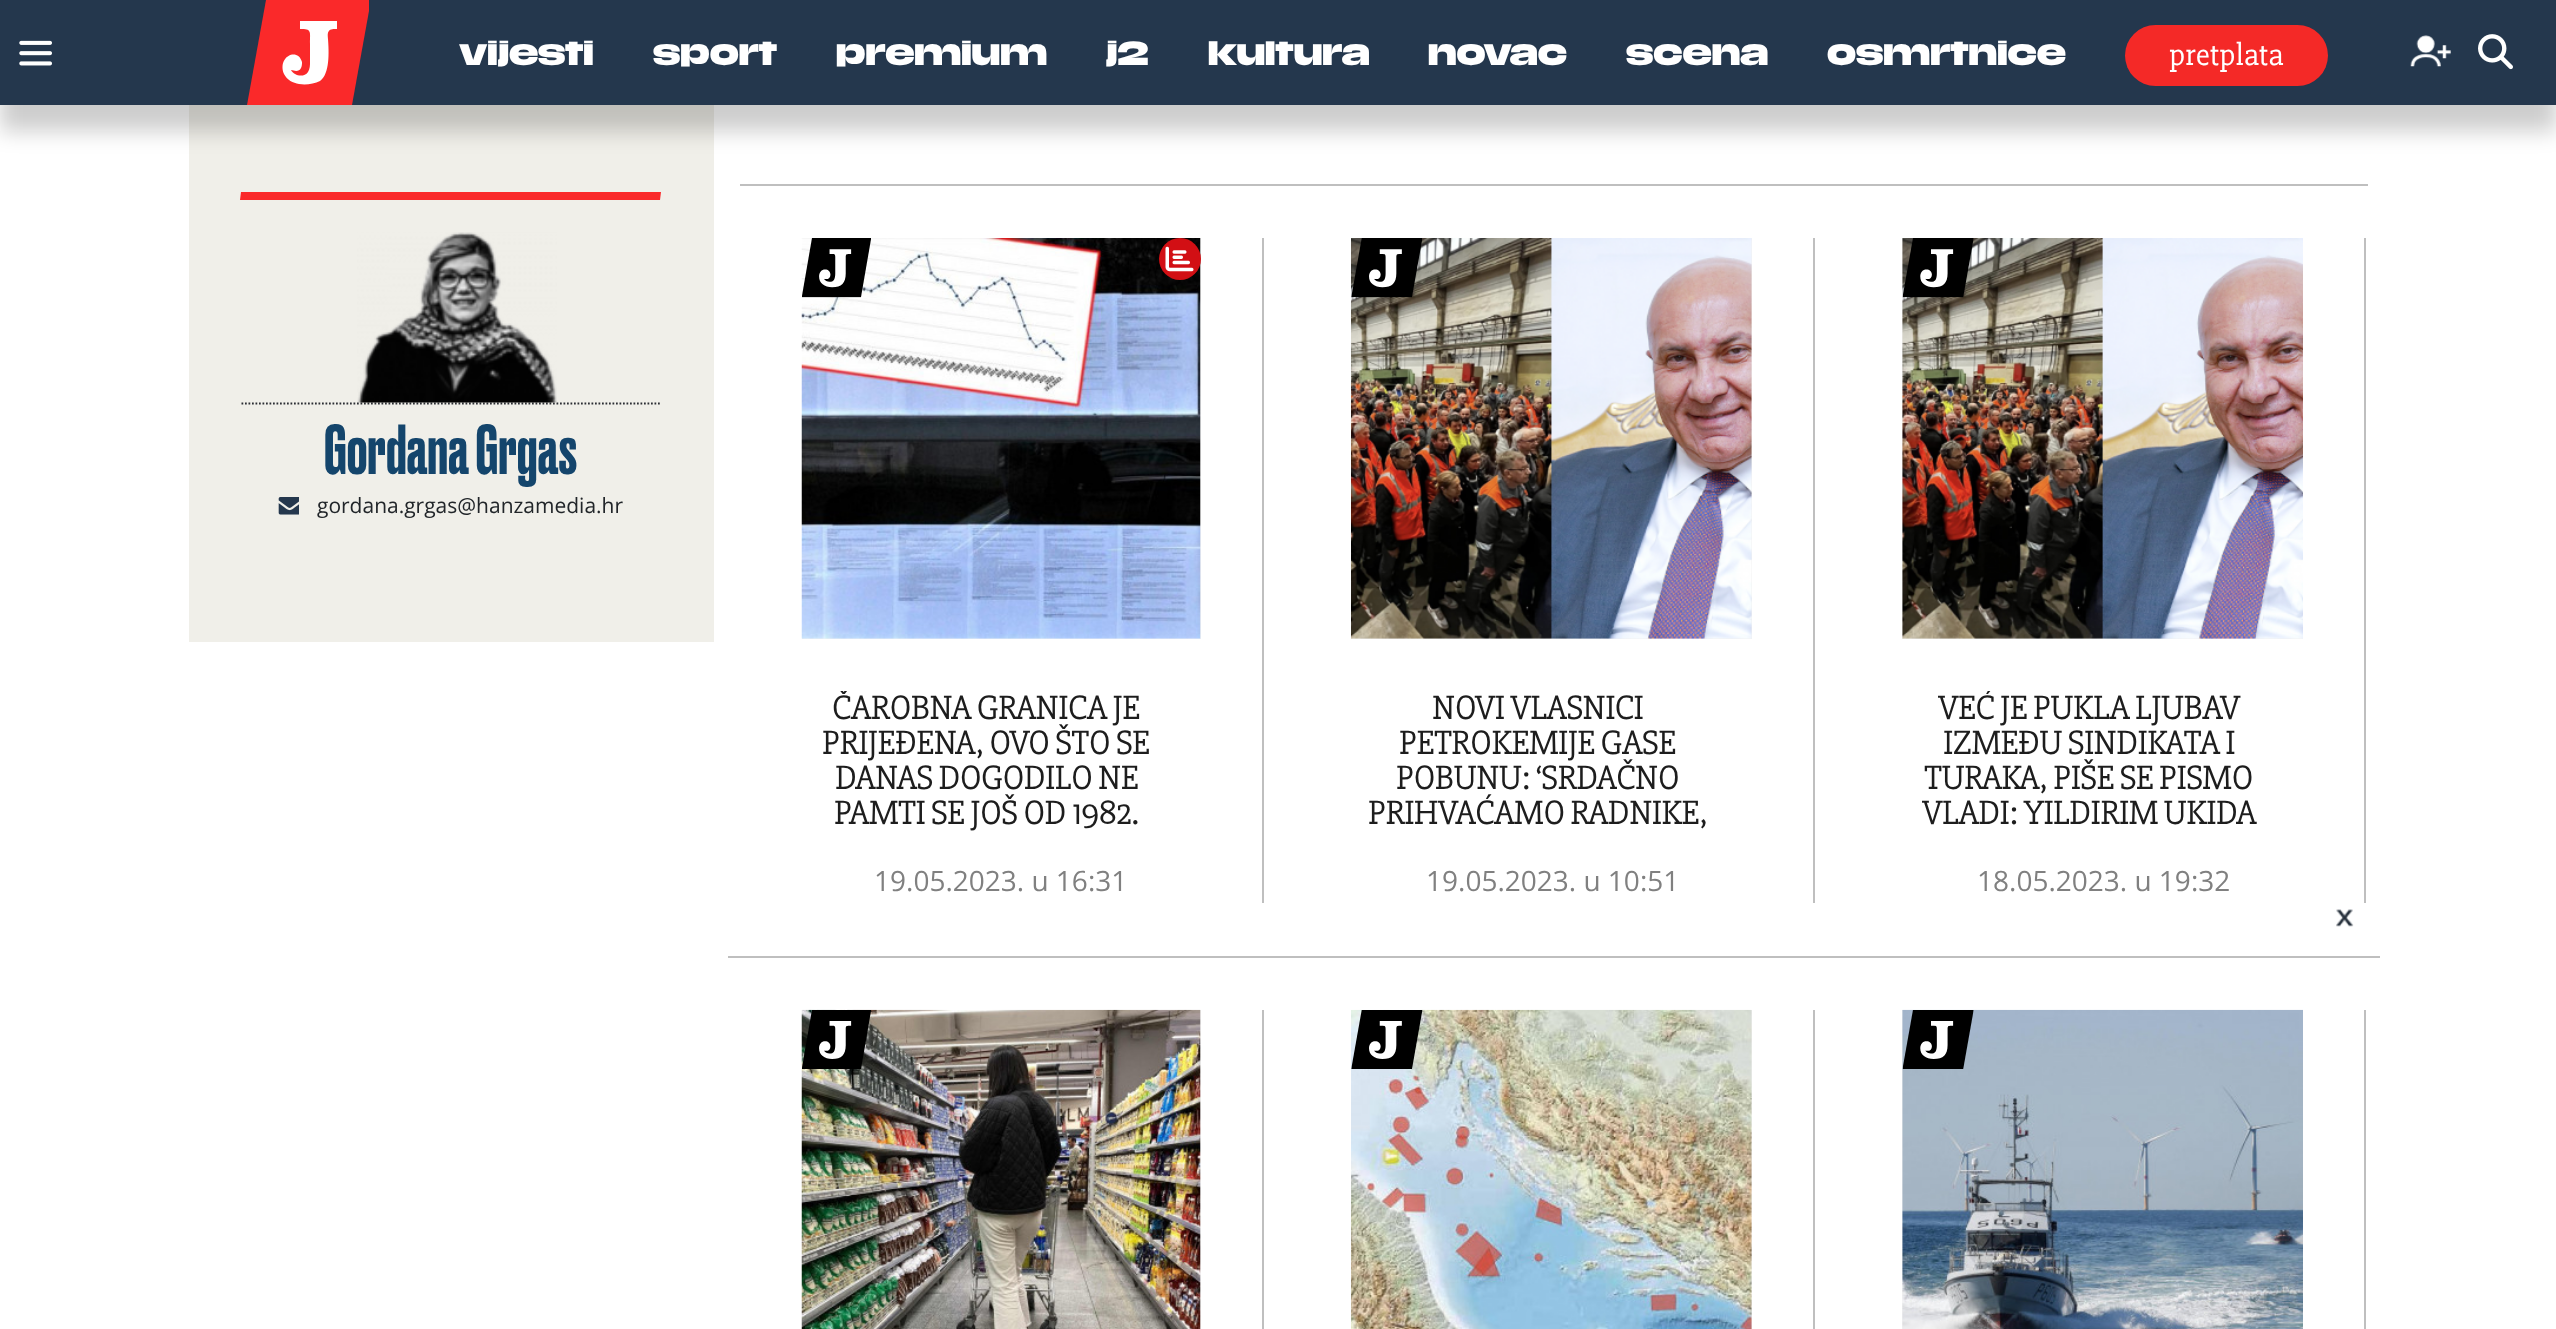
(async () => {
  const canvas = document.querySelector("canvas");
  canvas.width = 2556;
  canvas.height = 1329;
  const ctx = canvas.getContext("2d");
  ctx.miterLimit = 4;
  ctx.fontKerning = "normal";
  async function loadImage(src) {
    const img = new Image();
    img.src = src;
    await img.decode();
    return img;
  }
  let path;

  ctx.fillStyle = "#ffffff";
  ctx.fillRect(0, 0, 2556, 1329);
  ctx.fillStyle = "#f0efe9";
  ctx.fillRect(189, 105, 525, 537);
  ctx.fillStyle = "rgba(5, 5, 5, 0.2)";
  ctx.filter = "blur(10.5px)";
  ctx.beginPath();
  ctx.rect(0, 26, 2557, 105);
  ctx.fill();
  ctx.filter = "none";
  ctx.fillStyle = "#24374d";
  ctx.fillRect(0, 0, 2556, 105);
  ctx.drawImage(await loadImage("img/1.png"), 19, 40, 33, 26);
  ctx.save();
  ctx.beginPath();
  ctx.rect(247, 0, 122, 105);
  ctx.clip();
  ctx.fillStyle = "#fa292a";
  path = new Path2D("M266 0H371L352 105H247Z");
  ctx.fill(path);
  ctx.restore();
  ctx.fillStyle = "#ffffff";
  path = new Path2D("M310 62V44C310 31 312 29 300 29V21H337V29C334 29 330 29 329 31C327 33 328 37 328 39C329 52 330 74 320 81C314 84 306 85 299 84C293 83 287 80 284 74C277 56 298 47 302 62C302 64 302 66 301 68C299 72 295 71 291 70C294 76 304 78 308 72C310 69 310 65 310 62Z");
  ctx.fill(path);
  ctx.fillStyle = "#f42927";
  ctx.beginPath();
  ctx.roundRect(2125, 25, 203, 61, 30.5);
  ctx.fill();
  ctx.drawImage(await loadImage("img/2.png"), 2410, 35, 41, 32);
  ctx.drawImage(await loadImage("img/3.png"), 2478, 34, 35, 36);
  ctx.fillStyle = "#fa292a";
  path = new Path2D("M241 192H661L660 200H240Z");
  ctx.fill(path);
  path = new Path2D("M241.5 403.5H661.5");
  ctx.strokeStyle = "#2b2e34";
  ctx.lineWidth = 1.8;
  ctx.setLineDash([1.75, 1.75]);
  ctx.stroke(path);
  ctx.drawImage(await loadImage("img/4.png"), 357, 232, 200, 171);
  ctx.drawImage(await loadImage("img/5.png"), 278, 497, 21, 18);
  for (const [x, y, w, h, color] of [
    [740, 184, 1628, 2, "#bfbfbf"],
    [728, 956, 1652, 2, "#bfbfbf"],
    [1262, 238, 2, 665, "#bfbfbf"],
    [802, 238, 399, 401, "#f0f0f0"],
  ]) {
    ctx.fillStyle = color;
    ctx.fillRect(x, y, w, h);
  }
  ctx.drawImage(await loadImage("img/6.png"), 801, 238, 400, 401);
  ctx.drawImage(await loadImage("img/7.png"), 802, 238, 69, 60);
  ctx.fillStyle = "#d20f14";
  ctx.beginPath();
  ctx.arc(1180, 259, 21, 0, Math.PI * 2);
  ctx.fill();
  ctx.drawImage(await loadImage("img/8.png"), 1165, 246, 29, 26);
  ctx.fillStyle = "#bfbfbf";
  ctx.fillRect(1813, 238, 2, 665);
  ctx.fillStyle = "#f0f0f0";
  ctx.fillRect(1351, 238, 401, 401);
  ctx.drawImage(await loadImage("img/9.png"), 1351, 238, 401, 401);
  ctx.drawImage(await loadImage("img/10.png"), 1351, 238, 72, 60);
  ctx.fillStyle = "#bfbfbf";
  ctx.fillRect(2364, 238, 2, 665);
  ctx.fillStyle = "#f0f0f0";
  ctx.fillRect(1902, 238, 401, 401);
  ctx.drawImage(await loadImage("img/11.png"), 1902, 238, 401, 401);
  ctx.drawImage(await loadImage("img/12.png"), 1902, 238, 72, 60);
  ctx.fillStyle = "#bfbfbf";
  ctx.fillRect(1262, 1010, 2, 319);
  ctx.fillStyle = "#f0f0f0";
  ctx.fillRect(1200, 1010, 1, 319);
  ctx.drawImage(await loadImage("img/13.png"), 801, 1009, 400, 320);
  ctx.drawImage(await loadImage("img/14.png"), 802, 1010, 69, 59);
  ctx.fillStyle = "#bfbfbf";
  ctx.fillRect(1813, 1010, 2, 319);
  ctx.fillStyle = "#f0f0f0";
  ctx.fillRect(1751, 1010, 1, 319);
  ctx.drawImage(await loadImage("img/15.png"), 1351, 1009, 401, 320);
  ctx.drawImage(await loadImage("img/16.png"), 1351, 1010, 72, 59);
  ctx.fillStyle = "#bfbfbf";
  ctx.fillRect(2364, 1010, 2, 319);
  ctx.fillStyle = "#f0f0f0";
  ctx.fillRect(1902, 1010, 1, 319);
  ctx.drawImage(await loadImage("img/17.png"), 1902, 1009, 401, 320);
  ctx.drawImage(await loadImage("img/18.png"), 1902, 1010, 72, 59);
  ctx.drawImage(await loadImage("img/19.png"), 2336, 909, 18, 18);
  ctx.font = "900 29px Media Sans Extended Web";
  ctx.fillStyle = "#ffffff";
  for (const [text, x, y] of [
    ["vijesti", 459, 65],
    ["sport", 653, 65],
    ["premium", 836, 65],
    ["j2", 1106, 65],
    ["kultura", 1208, 65],
    ["novac", 1428, 65],
    ["scena", 1626, 65],
    ["osmrtnice", 1827, 65],
  ]) {
    ctx.fillText(text, x, y);
  }
  ctx.font = "31.5px 'Slabo 27px'";
  ctx.fillText("pretplata", 2169, 65);
  ctx.font = "500 66.5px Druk";
  ctx.fillStyle = "#14456c";
  ctx.fillText("Gordana Grgas", 324, 474);
  ctx.font = "21px Open Sans";
  ctx.fillStyle = "#212529";
  ctx.fillText("gordana.grgas@hanzamedia.hr", 317, 513);
  ctx.save();
  ctx.beginPath();
  ctx.rect(802, 691, 399, 140);
  ctx.clip();
  ctx.letterSpacing = "-0.7px";
  ctx.font = "35px 'Slabo 27px'";
  ctx.fillStyle = "#1d1d1d";
  ctx.fillText("ČAROBNA GRANICA JE", 832, 719);
  ctx.restore();
  ctx.letterSpacing = "-0.7px";
  ctx.font = "35px 'Slabo 27px'";
  ctx.fillStyle = "#1d1d1d";
  for (const [text, x, y] of [
    ["PRIJEĐENA, OVO ŠTO SE", 822, 754],
    ["DANAS DOGODILO NE", 835, 789],
    ["PAMTI SE JOŠ OD 1982.", 834, 824],
  ]) {
    ctx.fillText(text, x, y);
  }
  ctx.letterSpacing = "0px";
  ctx.font = "28px Open Sans";
  ctx.fillStyle = "#808080";
  ctx.fillText("19.05.2023. u 16:31", 874, 891);
  ctx.letterSpacing = "-0.7px";
  ctx.font = "35px 'Slabo 27px'";
  ctx.fillStyle = "#1d1d1d";
  for (const [text, x, y] of [
    ["NOVI VLASNICI", 1432, 719],
    ["PETROKEMIJE GASE", 1399, 754],
    ["POBUNU: ‘SRDAČNO", 1396, 789],
    ["PRIHVAĆAMO RADNIKE,", 1368, 824],
  ]) {
    ctx.fillText(text, x, y);
  }
  ctx.letterSpacing = "0px";
  ctx.font = "28px Open Sans";
  ctx.fillStyle = "#808080";
  ctx.fillText("19.05.2023. u 10:51", 1426, 891);
  ctx.save();
  ctx.beginPath();
  ctx.rect(1902, 691, 401, 140);
  ctx.clip();
  ctx.letterSpacing = "-0.7px";
  ctx.font = "35px 'Slabo 27px'";
  ctx.fillStyle = "#1d1d1d";
  ctx.fillText("VEĆ JE PUKLA LJUBAV", 1938, 719);
  ctx.restore();
  ctx.letterSpacing = "-0.7px";
  ctx.font = "35px 'Slabo 27px'";
  ctx.fillStyle = "#1d1d1d";
  for (const [text, x, y] of [
    ["IZMEĐU SINDIKATA I", 1943, 754],
    ["TURAKA, PIŠE SE PISMO", 1924, 789],
    ["VLADI: YILDIRIM UKIDA", 1922, 824],
  ]) {
    ctx.fillText(text, x, y);
  }
  ctx.letterSpacing = "0px";
  ctx.font = "28px Open Sans";
  ctx.fillStyle = "#808080";
  ctx.fillText("18.05.2023. u 19:32", 1977, 891);
})();
